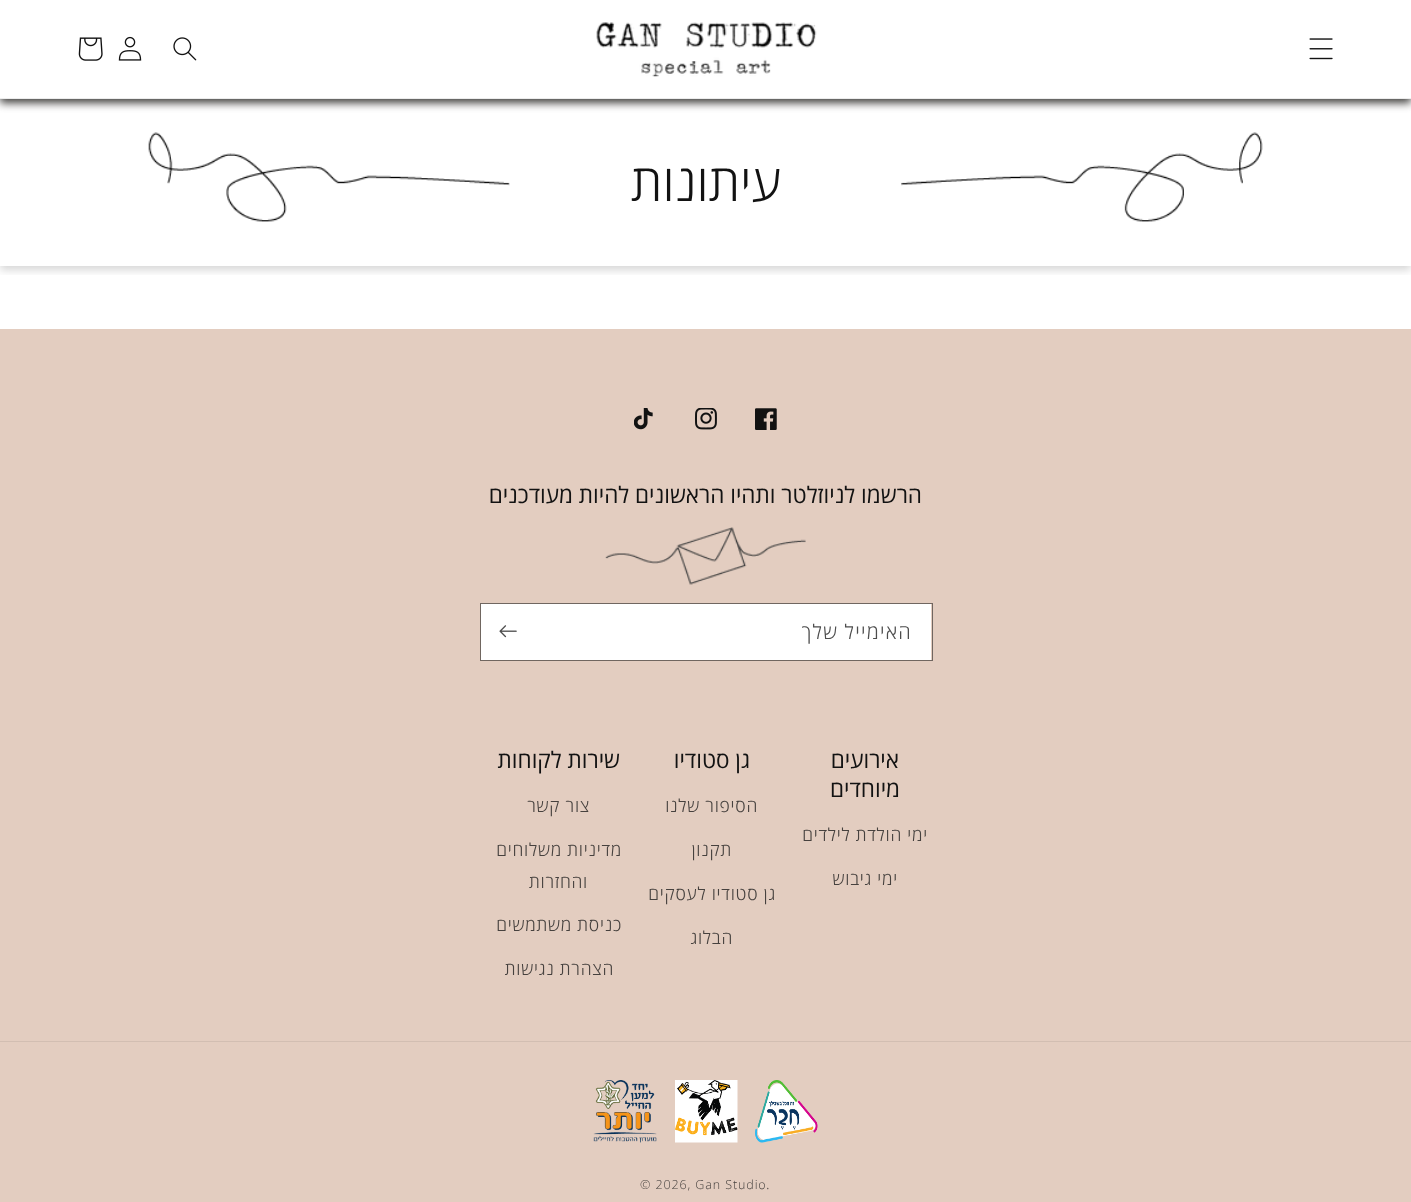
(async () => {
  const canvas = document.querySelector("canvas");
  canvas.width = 1411;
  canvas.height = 1202;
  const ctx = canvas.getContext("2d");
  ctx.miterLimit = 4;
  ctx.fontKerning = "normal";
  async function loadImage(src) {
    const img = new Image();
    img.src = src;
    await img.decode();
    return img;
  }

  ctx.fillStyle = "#ffffff";
  ctx.fillRect(0, 0, 1411, 1202);
  ctx.fillStyle = "#41403e";
  ctx.filter = "blur(4px)";
  ctx.beginPath();
  ctx.rect(0, 4, 1411, 99);
  ctx.fill();
  ctx.filter = "none";
  ctx.save();
  ctx.beginPath();
  ctx.rect(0, 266, 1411, 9);
  ctx.clip();
  ctx.fillStyle = "rgba(0, 0, 0, 0.16)";
  ctx.filter = "blur(4px)";
  ctx.beginPath();
  ctx.rect(0, 84, 1411, 186);
  ctx.fill();
  ctx.filter = "none";
  ctx.restore();
  ctx.fillStyle = "#ffffff";
  ctx.fillRect(0, 0, 1411, 98);
  ctx.fillStyle = "#ececec";
  ctx.fillRect(0, 98, 1411, 1);
  ctx.drawImage(await loadImage("img/1.png"), 1309, 38, 24, 22);
  ctx.drawImage(await loadImage("img/2.png"), 596, 22, 221, 55);
  ctx.drawImage(await loadImage("img/3.png"), 173, 37, 24, 24);
  ctx.drawImage(await loadImage("img/4.png"), 118, 36, 24, 25);
  ctx.drawImage(await loadImage("img/5.png"), 78, 37, 25, 24);
  ctx.drawImage(await loadImage("img/6.png"), 901, 132, 362, 90);
  ctx.drawImage(await loadImage("img/7.png"), 148, 132, 362, 90);
  ctx.fillStyle = "#e3cdc0";
  ctx.fillRect(0, 329, 1411, 873);
  ctx.drawImage(await loadImage("img/8.png"), 755, 408, 22, 22);
  ctx.drawImage(await loadImage("img/9.png"), 695, 408, 22, 22);
  ctx.drawImage(await loadImage("img/10.png"), 634, 408, 19, 22);
  ctx.drawImage(await loadImage("img/11.png"), 605, 527, 201, 58);
  ctx.fillStyle = "#ffffff";
  ctx.fillRect(481, 604, 450, 56);
  ctx.strokeStyle = "#706660";
  ctx.strokeRect(480.5, 603.5, 452, 57);
  ctx.drawImage(await loadImage("img/12.png"), 499, 625, 18, 13);
  ctx.fillStyle = "#d2beb2";
  ctx.fillRect(0, 1041, 1411, 1);
  ctx.drawImage(await loadImage("img/13.png"), 755, 1080, 63, 63);
  ctx.drawImage(await loadImage("img/14.png"), 675, 1080, 63, 63);
  ctx.drawImage(await loadImage("img/15.png"), 593, 1080, 64, 63);
  ctx.direction = "rtl";
  ctx.font = "300 51px Open Sans";
  ctx.fillStyle = "#121212";
  ctx.fillText("עיתונות", 781, 201);
  ctx.font = "22.5px Open Sans";
  ctx.fillText("הרשמו לניוזלטר ותהיו הראשונים להיות מעודכנים", 922, 503);
  ctx.letterSpacing = "1.25px";
  ctx.font = "300 20px Open Sans";
  ctx.fillStyle = "#4d4d4d";
  ctx.fillText("האימייל שלך", 912, 639);
  ctx.letterSpacing = "0px";
  ctx.font = "22.5px Open Sans";
  ctx.fillStyle = "#121212";
  ctx.fillText("אירועים", 899, 768);
  ctx.fillText("מיוחדים", 900, 797);
  ctx.letterSpacing = "0.75px";
  ctx.font = "300 17.5px Open Sans";
  ctx.fillStyle = "#46413e";
  ctx.fillText("ימי הולדת לילדים", 928, 841);
  ctx.fillText("ימי גיבוש", 898, 885);
  ctx.letterSpacing = "0px";
  ctx.font = "22.5px Open Sans";
  ctx.fillStyle = "#121212";
  ctx.fillText("גן סטודיו", 750, 768);
  ctx.letterSpacing = "0.75px";
  ctx.font = "300 17.5px Open Sans";
  ctx.fillStyle = "#46413e";
  for (const [text, x, y] of [
    ["הסיפור שלנו", 758, 812],
    ["תקנון", 732, 856],
    ["גן סטודיו לעסקים", 776, 900],
    ["הבלוג", 733, 944],
  ]) {
    ctx.fillText(text, x, y);
  }
  ctx.letterSpacing = "0px";
  ctx.font = "22.5px Open Sans";
  ctx.fillStyle = "#121212";
  ctx.fillText("שירות לקוחות", 620, 768);
  ctx.letterSpacing = "0.75px";
  ctx.font = "300 17.5px Open Sans";
  ctx.fillStyle = "#46413e";
  for (const [text, x, y] of [
    ["צור קשר", 590, 812],
    ["מדיניות משלוחים", 622, 856],
    ["והחזרות", 588, 888],
    ["כניסת משתמשים", 622, 931],
    ["הצהרת נגישות", 614, 975],
  ]) {
    ctx.fillText(text, x, y);
  }
  ctx.letterSpacing = "0.9px";
  ctx.direction = "ltr";
  ctx.font = "300 15px 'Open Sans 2'";
  ctx.fillText(".", 766, 1189);
  ctx.font = "300 12.5px 'Open Sans 2'";
  ctx.fillText("© 2026, Gan Studio", 640, 1189);
})();
